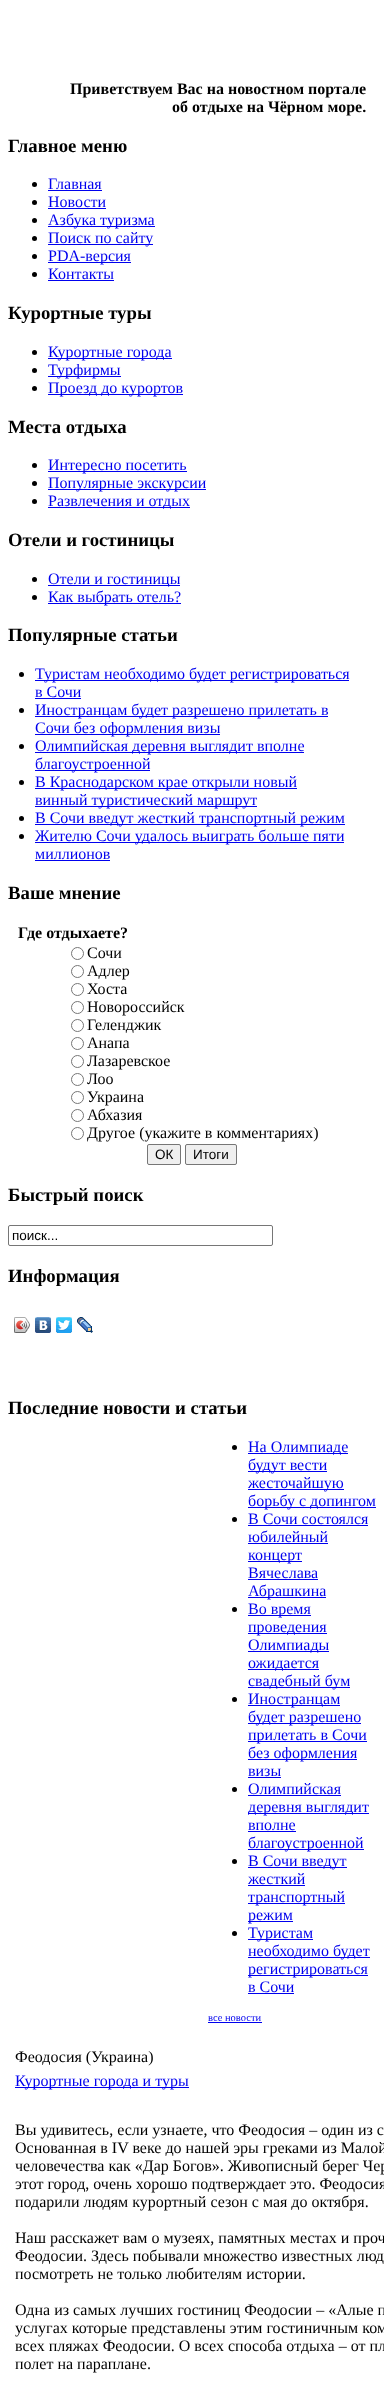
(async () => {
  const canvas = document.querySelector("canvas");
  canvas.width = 384;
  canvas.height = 2391;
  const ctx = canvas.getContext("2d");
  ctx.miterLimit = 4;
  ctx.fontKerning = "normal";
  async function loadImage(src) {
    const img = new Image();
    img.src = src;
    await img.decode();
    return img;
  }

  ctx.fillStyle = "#ffffff";
  ctx.fillRect(0, 0, 384, 2391);
  ctx.fillStyle = "#000000";
  ctx.beginPath();
  ctx.arc(34.5, 184.5, 2.5, 0, Math.PI * 2);
  ctx.fill();
  ctx.fillStyle = "#0000ee";
  ctx.fillRect(48, 190, 54, 1);
  ctx.fillStyle = "#000000";
  ctx.beginPath();
  ctx.arc(34.5, 202.5, 2.5, 0, Math.PI * 2);
  ctx.fill();
  ctx.fillStyle = "#0000ee";
  ctx.fillRect(48, 208, 58, 1);
  ctx.fillStyle = "#000000";
  ctx.beginPath();
  ctx.arc(34.5, 220.5, 2.5, 0, Math.PI * 2);
  ctx.fill();
  ctx.fillStyle = "#0000ee";
  ctx.fillRect(48, 226, 107, 1);
  ctx.fillStyle = "#000000";
  ctx.beginPath();
  ctx.arc(34.5, 238.5, 2.5, 0, Math.PI * 2);
  ctx.fill();
  ctx.fillStyle = "#0000ee";
  ctx.fillRect(48, 244, 105, 1);
  ctx.fillStyle = "#000000";
  ctx.beginPath();
  ctx.arc(34.5, 256.5, 2.5, 0, Math.PI * 2);
  ctx.fill();
  ctx.fillStyle = "#0000ee";
  ctx.fillRect(48, 262, 83, 1);
  ctx.fillStyle = "#000000";
  ctx.beginPath();
  ctx.arc(34.5, 274.5, 2.5, 0, Math.PI * 2);
  ctx.fill();
  ctx.fillStyle = "#0000ee";
  ctx.fillRect(48, 280, 66, 1);
  ctx.fillStyle = "#000000";
  ctx.beginPath();
  ctx.arc(34.5, 352.5, 2.5, 0, Math.PI * 2);
  ctx.fill();
  ctx.fillStyle = "#0000ee";
  ctx.fillRect(48, 358, 124, 1);
  ctx.fillStyle = "#000000";
  ctx.beginPath();
  ctx.arc(34.5, 370.5, 2.5, 0, Math.PI * 2);
  ctx.fill();
  ctx.fillStyle = "#0000ee";
  ctx.fillRect(48, 376, 73, 1);
  ctx.fillStyle = "#000000";
  ctx.beginPath();
  ctx.arc(34.5, 388.5, 2.5, 0, Math.PI * 2);
  ctx.fill();
  ctx.fillStyle = "#0000ee";
  ctx.fillRect(48, 394, 135, 1);
  ctx.fillStyle = "#000000";
  ctx.beginPath();
  ctx.arc(34.5, 465.5, 2.5, 0, Math.PI * 2);
  ctx.fill();
  ctx.fillStyle = "#0000ee";
  ctx.fillRect(48, 471, 139, 1);
  ctx.fillStyle = "#000000";
  ctx.beginPath();
  ctx.arc(34.5, 483.5, 2.5, 0, Math.PI * 2);
  ctx.fill();
  ctx.fillStyle = "#0000ee";
  ctx.fillRect(48, 489, 158, 1);
  ctx.fillStyle = "#000000";
  ctx.beginPath();
  ctx.arc(34.5, 501.5, 2.5, 0, Math.PI * 2);
  ctx.fill();
  ctx.fillStyle = "#0000ee";
  ctx.fillRect(48, 507, 142, 1);
  ctx.fillStyle = "#000000";
  ctx.beginPath();
  ctx.arc(34.5, 579.5, 2.5, 0, Math.PI * 2);
  ctx.fill();
  ctx.fillStyle = "#0000ee";
  ctx.fillRect(48, 585, 132, 1);
  ctx.fillStyle = "#000000";
  ctx.beginPath();
  ctx.arc(34.5, 597.5, 2.5, 0, Math.PI * 2);
  ctx.fill();
  ctx.fillStyle = "#0000ee";
  ctx.fillRect(48, 603, 133, 1);
  ctx.fillStyle = "#000000";
  ctx.beginPath();
  ctx.arc(21.5, 674.5, 2.5, 0, Math.PI * 2);
  ctx.fill();
  ctx.fillStyle = "#0000ee";
  ctx.fillRect(35, 680, 314, 1);
  ctx.fillRect(35, 698, 46, 1);
  ctx.fillStyle = "#000000";
  ctx.beginPath();
  ctx.arc(21.5, 710.5, 2.5, 0, Math.PI * 2);
  ctx.fill();
  ctx.fillStyle = "#0000ee";
  ctx.fillRect(35, 716, 293, 1);
  ctx.fillRect(35, 734, 185, 1);
  ctx.fillStyle = "#000000";
  ctx.beginPath();
  ctx.arc(21.5, 746.5, 2.5, 0, Math.PI * 2);
  ctx.fill();
  ctx.fillStyle = "#0000ee";
  ctx.fillRect(35, 752, 269, 1);
  ctx.fillRect(35, 770, 115, 1);
  ctx.fillStyle = "#000000";
  ctx.beginPath();
  ctx.arc(21.5, 782.5, 2.5, 0, Math.PI * 2);
  ctx.fill();
  ctx.fillStyle = "#0000ee";
  ctx.fillRect(35, 788, 262, 1);
  ctx.fillRect(35, 806, 222, 1);
  ctx.fillStyle = "#000000";
  ctx.beginPath();
  ctx.arc(21.5, 818.5, 2.5, 0, Math.PI * 2);
  ctx.fill();
  ctx.fillStyle = "#0000ee";
  ctx.fillRect(35, 824, 310, 1);
  ctx.fillStyle = "#000000";
  ctx.beginPath();
  ctx.arc(21.5, 836.5, 2.5, 0, Math.PI * 2);
  ctx.fill();
  ctx.fillStyle = "#0000ee";
  ctx.fillRect(35, 842, 309, 1);
  ctx.fillRect(35, 860, 75, 1);
  ctx.beginPath();
  ctx.arc(77.5, 953.5, 6, 0, Math.PI * 2);
  ctx.strokeStyle = "#767676";
  ctx.stroke();
  ctx.beginPath();
  ctx.arc(77.5, 971.5, 6, 0, Math.PI * 2);
  ctx.stroke();
  ctx.beginPath();
  ctx.arc(77.5, 989.5, 6, 0, Math.PI * 2);
  ctx.stroke();
  ctx.beginPath();
  ctx.arc(77.5, 1007.5, 6, 0, Math.PI * 2);
  ctx.stroke();
  ctx.beginPath();
  ctx.arc(77.5, 1025.5, 6, 0, Math.PI * 2);
  ctx.stroke();
  ctx.beginPath();
  ctx.arc(77.5, 1043.5, 6, 0, Math.PI * 2);
  ctx.stroke();
  ctx.beginPath();
  ctx.arc(77.5, 1061.5, 6, 0, Math.PI * 2);
  ctx.stroke();
  ctx.beginPath();
  ctx.arc(77.5, 1079.5, 6, 0, Math.PI * 2);
  ctx.stroke();
  ctx.beginPath();
  ctx.arc(77.5, 1097.5, 6, 0, Math.PI * 2);
  ctx.stroke();
  ctx.beginPath();
  ctx.arc(77.5, 1115.5, 6, 0, Math.PI * 2);
  ctx.stroke();
  ctx.beginPath();
  ctx.arc(77.5, 1133.5, 6, 0, Math.PI * 2);
  ctx.stroke();
  ctx.fillStyle = "#efefef";
  ctx.beginPath();
  ctx.roundRect(147.5, 1144.5, 33, 20, 1.5);
  ctx.fill();
  ctx.stroke();
  ctx.beginPath();
  ctx.roundRect(185.5, 1144.5, 51, 20, 1.5);
  ctx.fill();
  ctx.stroke();
  ctx.beginPath();
  ctx.roundRect(8.5, 1225.5, 264, 20, 1.5);
  ctx.stroke();
  ctx.drawImage(await loadImage("img/1.png"), 14, 1317, 16, 16);
  ctx.drawImage(await loadImage("img/2.png"), 14, 1317, 16, 16);
  ctx.drawImage(await loadImage("img/3.png"), 35, 1317, 16, 16);
  ctx.drawImage(await loadImage("img/4.png"), 56, 1317, 16, 16);
  ctx.drawImage(await loadImage("img/5.png"), 77, 1317, 16, 16);
  ctx.fillStyle = "#000000";
  ctx.beginPath();
  ctx.arc(234.5, 1447.5, 2.5, 0, Math.PI * 2);
  ctx.fill();
  for (const [x, y, w, h, color] of [
    [248, 1453, 100, 1, "#0000ee"],
    [248, 1471, 79, 1, "#0000ee"],
    [248, 1489, 96, 1, "#0000ee"],
    [248, 1507, 128, 1, "#0000ee"],
  ]) {
    ctx.fillStyle = color;
    ctx.fillRect(x, y, w, h);
  }
  ctx.fillStyle = "#000000";
  ctx.beginPath();
  ctx.arc(234.5, 1519.5, 2.5, 0, Math.PI * 2);
  ctx.fill();
  for (const [x, y, w, h, color] of [
    [248, 1525, 120, 1, "#0000ee"],
    [248, 1543, 80, 1, "#0000ee"],
    [248, 1561, 54, 1, "#0000ee"],
    [248, 1579, 70, 1, "#0000ee"],
    [248, 1597, 78, 1, "#0000ee"],
  ]) {
    ctx.fillStyle = color;
    ctx.fillRect(x, y, w, h);
  }
  ctx.fillStyle = "#000000";
  ctx.beginPath();
  ctx.arc(234.5, 1609.5, 2.5, 0, Math.PI * 2);
  ctx.fill();
  for (const [x, y, w, h, color] of [
    [248, 1615, 63, 1, "#0000ee"],
    [248, 1633, 79, 1, "#0000ee"],
    [248, 1651, 81, 1, "#0000ee"],
    [248, 1669, 71, 1, "#0000ee"],
    [248, 1687, 102, 1, "#0000ee"],
  ]) {
    ctx.fillStyle = color;
    ctx.fillRect(x, y, w, h);
  }
  ctx.fillStyle = "#000000";
  ctx.beginPath();
  ctx.arc(234.5, 1699.5, 2.5, 0, Math.PI * 2);
  ctx.fill();
  for (const [x, y, w, h, color] of [
    [248, 1705, 92, 1, "#0000ee"],
    [248, 1723, 113, 1, "#0000ee"],
    [248, 1741, 119, 1, "#0000ee"],
    [248, 1759, 109, 1, "#0000ee"],
    [248, 1777, 33, 1, "#0000ee"],
  ]) {
    ctx.fillStyle = color;
    ctx.fillRect(x, y, w, h);
  }
  ctx.fillStyle = "#000000";
  ctx.beginPath();
  ctx.arc(234.5, 1789.5, 2.5, 0, Math.PI * 2);
  ctx.fill();
  for (const [x, y, w, h, color] of [
    [248, 1795, 93, 1, "#0000ee"],
    [248, 1813, 121, 1, "#0000ee"],
    [248, 1831, 48, 1, "#0000ee"],
    [248, 1849, 116, 1, "#0000ee"],
  ]) {
    ctx.fillStyle = color;
    ctx.fillRect(x, y, w, h);
  }
  ctx.fillStyle = "#000000";
  ctx.beginPath();
  ctx.arc(234.5, 1861.5, 2.5, 0, Math.PI * 2);
  ctx.fill();
  for (const [x, y, w, h, color] of [
    [248, 1867, 99, 1, "#0000ee"],
    [248, 1885, 57, 1, "#0000ee"],
    [248, 1903, 97, 1, "#0000ee"],
    [248, 1921, 45, 1, "#0000ee"],
  ]) {
    ctx.fillStyle = color;
    ctx.fillRect(x, y, w, h);
  }
  ctx.fillStyle = "#000000";
  ctx.beginPath();
  ctx.arc(234.5, 1933.5, 2.5, 0, Math.PI * 2);
  ctx.fill();
  for (const [x, y, w, h, color] of [
    [248, 1939, 65, 1, "#0000ee"],
    [248, 1957, 122, 1, "#0000ee"],
    [248, 1975, 120, 1, "#0000ee"],
    [248, 1993, 46, 1, "#0000ee"],
    [208, 2022, 54, 1, "#0000ee"],
    [15, 2087, 174, 1, "#0000ee"],
  ]) {
    ctx.fillStyle = color;
    ctx.fillRect(x, y, w, h);
  }
  ctx.font = "bold 16px Liberation Serif";
  ctx.fillStyle = "#000000";
  ctx.fillText("Приветствуем Вас на новостном портале", 70, 94);
  ctx.fillText("об отдыхе на Чёрном море.", 172, 112);
  ctx.font = "bold 18.75px Liberation Serif";
  ctx.fillText("Главное меню", 8, 152);
  ctx.font = "16px Liberation Serif";
  ctx.fillStyle = "#0000ee";
  for (const [text, x, y] of [
    ["Главная", 48, 189],
    ["Новости", 48, 207],
    ["Азбука туризма", 48, 225],
    ["Поиск по сайту", 48, 243],
    ["PDA-версия", 48, 261],
    ["Контакты", 48, 279],
  ]) {
    ctx.fillText(text, x, y);
  }
  ctx.font = "bold 18.75px Liberation Serif";
  ctx.fillStyle = "#000000";
  ctx.fillText("Курортные туры", 8, 319);
  ctx.font = "16px Liberation Serif";
  ctx.fillStyle = "#0000ee";
  for (const [text, x, y] of [
    ["Курортные города", 48, 357],
    ["Турфирмы", 48, 375],
    ["Проезд до курортов", 48, 393],
  ]) {
    ctx.fillText(text, x, y);
  }
  ctx.font = "bold 18.75px Liberation Serif";
  ctx.fillStyle = "#000000";
  ctx.fillText("Места отдыха", 8, 433);
  ctx.font = "16px Liberation Serif";
  ctx.fillStyle = "#0000ee";
  for (const [text, x, y] of [
    ["Интересно посетить", 48, 470],
    ["Популярные экскурсии", 48, 488],
    ["Развлечения и отдых", 48, 506],
  ]) {
    ctx.fillText(text, x, y);
  }
  ctx.font = "bold 18.75px Liberation Serif";
  ctx.fillStyle = "#000000";
  ctx.fillText("Отели и гостиницы", 8, 546);
  ctx.font = "16px Liberation Serif";
  ctx.fillStyle = "#0000ee";
  ctx.fillText("Отели и гостиницы", 48, 584);
  ctx.fillText("Как выбрать отель?", 48, 602);
  ctx.font = "bold 18.75px Liberation Serif";
  ctx.fillStyle = "#000000";
  ctx.fillText("Популярные статьи", 8, 641);
  ctx.font = "16px Liberation Serif";
  ctx.fillStyle = "#0000ee";
  for (const [text, x, y] of [
    ["Туристам необходимо будет регистрироваться", 35, 679],
    ["в Сочи", 35, 697],
    ["Иностранцам будет разрешено прилетать в", 35, 715],
    ["Сочи без оформления визы", 35, 733],
    ["Олимпийская деревня выглядит вполне", 35, 751],
    ["благоустроенной", 35, 769],
    ["В Краснодарском крае открыли новый", 35, 787],
    ["винный туристический маршрут", 35, 805],
    ["В Сочи введут жесткий транспортный режим", 35, 823],
    ["Жителю Сочи удалось выиграть больше пяти", 35, 841],
    ["миллионов", 35, 859],
  ]) {
    ctx.fillText(text, x, y);
  }
  ctx.font = "bold 18.75px Liberation Serif";
  ctx.fillStyle = "#000000";
  ctx.fillText("Ваше мнение", 8, 899);
  ctx.font = "bold 16px Liberation Serif";
  ctx.fillText("Где отдыхаете?", 18, 938);
  ctx.font = "16px Liberation Serif";
  for (const [text, x, y] of [
    ["Сочи", 87, 958],
    ["Адлер", 87, 976],
    ["Хоста", 87, 994],
    ["Новороссийск", 87, 1012],
    ["Геленджик", 87, 1030],
    ["Анапа", 87, 1048],
    ["Лазаревское", 87, 1066],
    ["Лоо", 87, 1084],
    ["Украина", 87, 1102],
    ["Абхазия", 87, 1120],
    ["Другое (укажите в комментариях)", 87, 1138],
  ]) {
    ctx.fillText(text, x, y);
  }
  ctx.font = "13.5px Liberation Sans";
  ctx.fillText("ОК", 155, 1159);
  ctx.fillText("Итоги", 193, 1159);
  ctx.font = "bold 18.75px Liberation Serif";
  ctx.fillText("Быстрый поиск", 8, 1201);
  ctx.font = "13.5px Liberation Sans";
  ctx.fillText("поиск...", 12, 1240);
  ctx.font = "bold 18.75px Liberation Serif";
  ctx.fillText("Информация", 8, 1282);
  ctx.fillText("Последние новости и статьи", 8, 1414);
  ctx.font = "16px Liberation Serif";
  ctx.fillStyle = "#0000ee";
  for (const [text, x, y] of [
    ["На Олимпиаде", 248, 1452],
    ["будут вести", 248, 1470],
    ["жесточайшую", 248, 1488],
    ["борьбу с допингом", 248, 1506],
    ["В Сочи состоялся", 248, 1524],
    ["юбилейный", 248, 1542],
    ["концерт", 248, 1560],
    ["Вячеслава", 248, 1578],
    ["Абрашкина", 248, 1596],
    ["Во время", 248, 1614],
    ["проведения", 248, 1632],
    ["Олимпиады", 248, 1650],
    ["ожидается", 248, 1668],
    ["свадебный бум", 248, 1686],
    ["Иностранцам", 248, 1704],
    ["будет разрешено", 248, 1722],
    ["прилетать в Сочи", 248, 1740],
    ["без оформления", 248, 1758],
    ["визы", 248, 1776],
    ["Олимпийская", 248, 1794],
    ["деревня выглядит", 248, 1812],
    ["вполне", 248, 1830],
    ["благоустроенной", 248, 1848],
    ["В Сочи введут", 248, 1866],
    ["жесткий", 248, 1884],
    ["транспортный", 248, 1902],
    ["режим", 248, 1920],
    ["Туристам", 248, 1938],
    ["необходимо будет", 248, 1956],
    ["регистрироваться", 248, 1974],
    ["в Сочи", 248, 1992],
  ]) {
    ctx.fillText(text, x, y);
  }
  ctx.font = "10.5px Liberation Serif";
  ctx.fillText("все новости", 208, 2021);
  ctx.font = "16px Liberation Serif";
  ctx.fillStyle = "#000000";
  ctx.fillText("Феодосия (Украина)", 15, 2062);
  ctx.fillStyle = "#0000ee";
  ctx.fillText("Курортные города и туры", 15, 2086);
  ctx.fillStyle = "#000000";
  for (const [text, x, y] of [
    ["Вы удивитесь, если узнаете, что Феодосия – один из с", 15, 2135],
    ["Основанная в IV веке до нашей эры греками из Малой", 15, 2153],
    ["человечества как «Дар Богов». Живописный берег Чер", 15, 2171],
    ["этот город, очень хорошо подтверждает это. Феодосия", 15, 2189],
    ["подарили людям курортный сезон с мая до октября.", 15, 2207],
    ["Наш расскажет вам о музеях, памятных местах и проч", 15, 2243],
    ["Феодосии. Здесь побывали множество известных люд", 15, 2261],
    ["посмотреть не только любителям истории.", 15, 2279],
    ["Одна из самых лучших гостиниц Феодосии – «Алые п", 15, 2315],
    ["услугах которые представлены этим гостиничным ком", 15, 2333],
    ["всех пляжах Феодосии. О всех способа отдыха – от пл", 15, 2351],
    ["полет на параплане.", 15, 2369],
  ]) {
    ctx.fillText(text, x, y);
  }
})();
